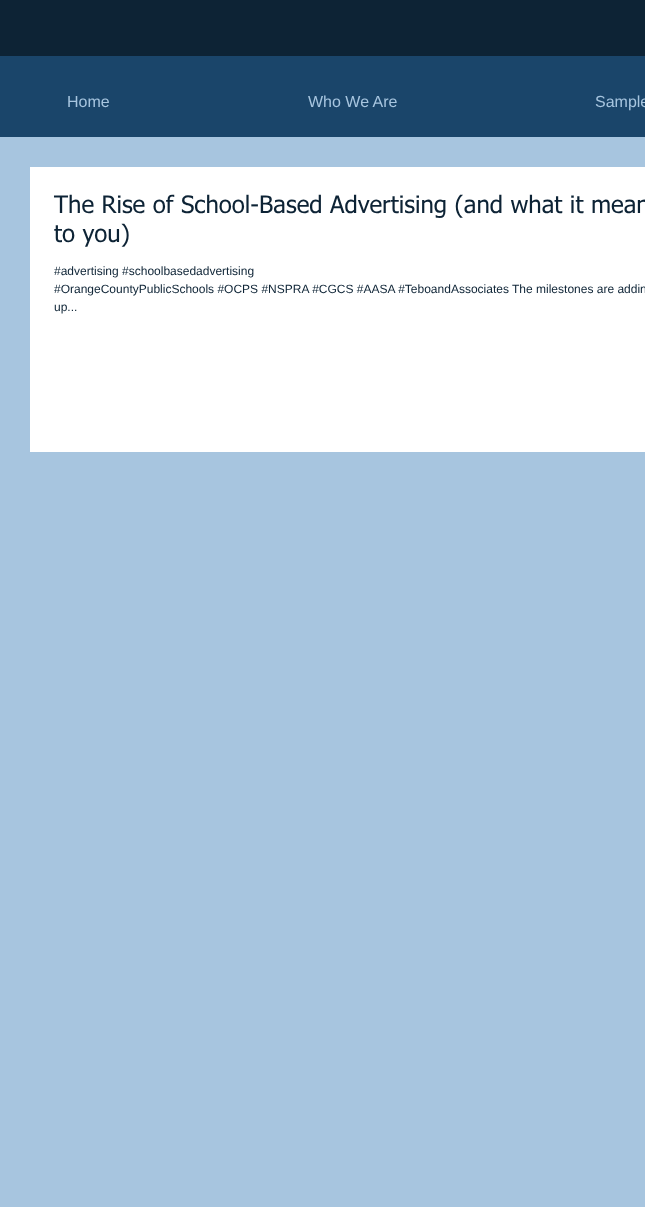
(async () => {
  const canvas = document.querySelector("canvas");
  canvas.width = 645;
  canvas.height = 1207;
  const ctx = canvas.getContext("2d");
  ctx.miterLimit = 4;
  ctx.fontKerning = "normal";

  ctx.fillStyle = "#0d2335";
  ctx.fillRect(0, 0, 645, 1207);
  for (const [x, y, w, h, color] of [
    [0, 56, 645, 81, "#1a456a"],
    [0, 137, 645, 1070, "#a7c5df"],
    [30, 167, 615, 285, "#ffffff"],
  ]) {
    ctx.fillStyle = color;
    ctx.fillRect(x, y, w, h);
  }
  ctx.font = "16px Liberation Sans";
  ctx.fillStyle = "#a7c5df";
  for (const [text, x, y] of [
    ["Home", 67, 107],
    ["Who We Are", 308, 107],
    ["Sample", 595, 107],
  ]) {
    ctx.fillText(text, x, y);
  }
  ctx.font = "24px tahoma";
  ctx.fillStyle = "#0d2335";
  ctx.fillText("The Rise of School-Based Advertising (and what it mean", 54, 213);
  ctx.fillText("to you)", 54, 242);
  ctx.font = "12px Liberation Sans";
  for (const [text, x, y] of [
    ["#advertising #schoolbasedadvertising", 54, 275],
    ["#OrangeCountyPublicSchools #OCPS #NSPRA #CGCS #AASA #TeboandAssociates The milestones are addin", 54, 293],
    ["up...", 54, 311],
  ]) {
    ctx.fillText(text, x, y);
  }
})();
